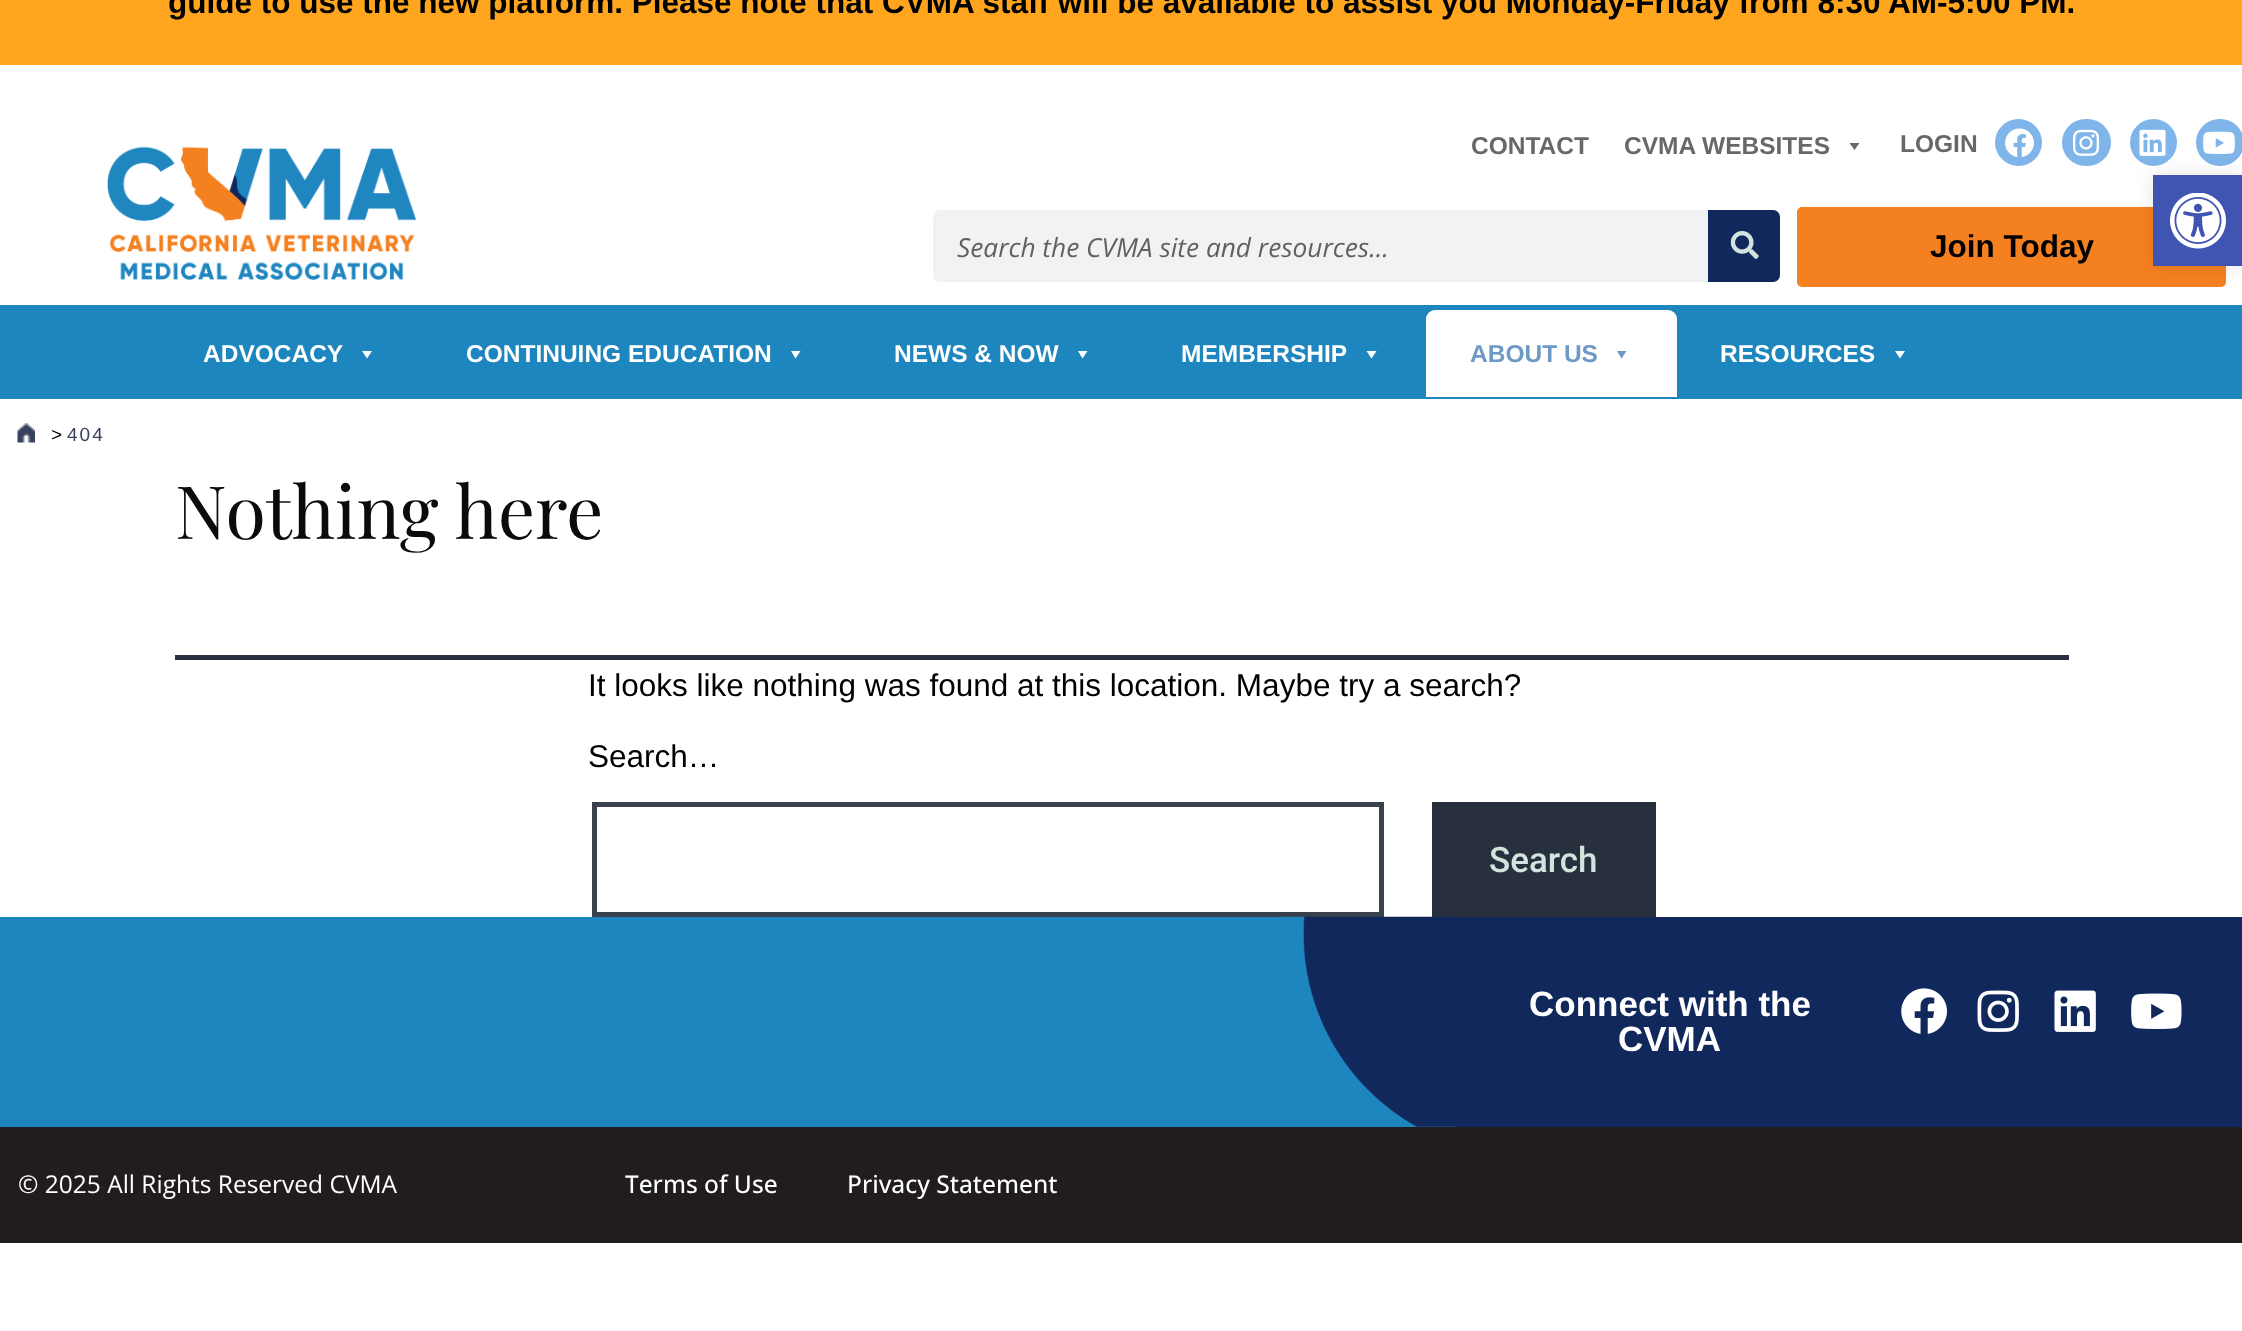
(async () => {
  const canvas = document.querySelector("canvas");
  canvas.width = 2242;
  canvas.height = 1331;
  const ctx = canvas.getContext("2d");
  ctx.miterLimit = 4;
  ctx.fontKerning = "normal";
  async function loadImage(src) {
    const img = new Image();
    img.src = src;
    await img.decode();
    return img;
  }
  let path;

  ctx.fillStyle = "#ffffff";
  ctx.fillRect(0, 0, 2242, 1331);
  ctx.fillStyle = "#ffa51e";
  ctx.fillRect(0, 0, 2242, 65);
  ctx.drawImage(await loadImage("img/1.png"), 107, 146, 310, 134);
  ctx.fillStyle = "#686868";
  path = new Path2D("M1859.5 143L1854.5 150L1849.5 143Z");
  ctx.fill(path);
  ctx.fillStyle = "#80b5ea";
  ctx.beginPath();
  ctx.arc(2018.5, 142.5, 23.5, 0, Math.PI * 2);
  ctx.fill();
  ctx.drawImage(await loadImage("img/2.png"), 2005, 128, 29, 29);
  ctx.beginPath();
  ctx.roundRect(2062, 119, 49, 47, 23.5);
  ctx.fill();
  ctx.drawImage(await loadImage("img/3.png"), 2073, 129, 27, 27);
  ctx.beginPath();
  ctx.arc(2153.5, 142.5, 23.5, 0, Math.PI * 2);
  ctx.fill();
  ctx.drawImage(await loadImage("img/4.png"), 2139, 129, 27, 27);
  ctx.beginPath();
  ctx.roundRect(2196, 119, 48, 47, 23.5);
  ctx.fill();
  ctx.drawImage(await loadImage("img/5.png"), 2203, 131, 32, 23);
  ctx.fillStyle = "#f1f2f3";
  ctx.beginPath();
  ctx.roundRect(933, 210, 847, 72, 7);
  ctx.fill();
  ctx.fillStyle = "#11285c";
  ctx.beginPath();
  ctx.roundRect(1708, 210, 72, 72, [0, 7, 7, 0]);
  ctx.fill();
  ctx.drawImage(await loadImage("img/6.png"), 1730, 231, 29, 28);
  ctx.fillStyle = "#f58020";
  ctx.beginPath();
  ctx.roundRect(1797, 207, 429, 80, 5);
  ctx.fill();
  ctx.fillStyle = "#1e86bf";
  ctx.fillRect(0, 305, 2242, 94);
  ctx.fillStyle = "#ffffff";
  path = new Path2D("M372 351L367 358.5L362 351Z");
  ctx.fill(path);
  path = new Path2D("M800.5 351L795.5 358.5L791 351Z");
  ctx.fill(path);
  path = new Path2D("M1087.5 351L1082.5 358.5L1078 351Z");
  ctx.fill(path);
  path = new Path2D("M1376.5 351L1371.5 358.5L1366.5 351Z");
  ctx.fill(path);
  ctx.beginPath();
  ctx.roundRect(1426, 310, 251, 87, [9, 9, 0, 0]);
  ctx.fill();
  ctx.fillStyle = "#6d99c5";
  path = new Path2D("M1626.5 351L1621.5 358.5L1617 351Z");
  ctx.fill(path);
  ctx.fillStyle = "#ffffff";
  path = new Path2D("M1905 351L1900 358.5L1895 351Z");
  ctx.fill(path);
  ctx.drawImage(await loadImage("img/7.png"), 17, 423, 18, 20);
  ctx.fillStyle = "rgba(0, 0, 0, 0.1)";
  ctx.filter = "blur(9px)";
  ctx.beginPath();
  ctx.rect(2153, 175, 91, 91);
  ctx.fill();
  ctx.filter = "none";
  ctx.fillStyle = "#4054b2";
  ctx.fillRect(2153, 175, 89, 91);
  ctx.drawImage(await loadImage("img/8.png"), 2170, 193, 56, 56);
  ctx.fillStyle = "#28303d";
  ctx.fillRect(175, 655, 1894, 5);
  ctx.strokeStyle = "#39414d";
  ctx.lineWidth = 5;
  ctx.strokeRect(594.5, 804.5, 787, 110);
  for (const [x, y, w, h, color] of [
    [1432, 802, 224, 115, "#28303d"],
    [0, 917, 1456, 210, "#1e86bf"],
    [1456, 917, 786, 210, "#11285c"],
  ]) {
    ctx.fillStyle = color;
    ctx.fillRect(x, y, w, h);
  }
  ctx.drawImage(await loadImage("img/9.png"), 1282, 916, 174, 211);
  ctx.drawImage(await loadImage("img/10.png"), 1901, 988, 46, 46);
  ctx.drawImage(await loadImage("img/11.png"), 1977, 990, 42, 42);
  ctx.drawImage(await loadImage("img/12.png"), 2054, 990, 42, 42);
  ctx.drawImage(await loadImage("img/13.png"), 2131, 993, 51, 36);
  ctx.fillStyle = "#221d1d";
  ctx.fillRect(0, 1127, 2242, 116);
  ctx.font = "bold 31.5px Liberation Sans";
  ctx.fillStyle = "#000000";
  ctx.fillText("guide to use the new platform. Please note that CVMA staff will be available to assist you Monday-Friday from 8:30 AM-5:00 PM.", 168, 13);
  ctx.font = "bold 24.5px Liberation Sans";
  ctx.fillStyle = "#686868";
  for (const [text, x, y] of [
    ["CONTACT", 1471, 154],
    ["CVMA WEBSITES", 1624, 154],
    ["LOGIN", 1900, 152],
  ]) {
    ctx.fillText(text, x, y);
  }
  ctx.font = "italic 26.25px Open Sans";
  ctx.fillStyle = "#606161";
  ctx.fillText("Search the CVMA site and resources...", 957, 257);
  ctx.font = "bold 31.5px Liberation Sans";
  ctx.fillStyle = "#000000";
  ctx.fillText("Join Today", 1930, 257);
  ctx.font = "bold 24.5px Liberation Sans";
  ctx.fillStyle = "#ffffff";
  for (const [text, x, y] of [
    ["ADVOCACY", 203, 362],
    ["CONTINUING EDUCATION", 466, 362],
    ["NEWS & NOW", 894, 362],
    ["MEMBERSHIP", 1181, 362],
  ]) {
    ctx.fillText(text, x, y);
  }
  ctx.fillStyle = "#6d99c5";
  ctx.fillText("ABOUT US", 1470, 362);
  ctx.fillStyle = "#ffffff";
  ctx.fillText("RESOURCES", 1720, 362);
  ctx.font = "19px Liberation Sans";
  ctx.fillStyle = "#000000";
  ctx.fillText(">", 51, 441);
  ctx.letterSpacing = "2px";
  ctx.fillStyle = "#394161";
  ctx.fillText("404", 67, 441);
  ctx.letterSpacing = "0px";
  ctx.font = "73.5px Playfair Display";
  ctx.fillStyle = "#0b0b0b";
  ctx.fillText("Nothing here", 175, 539);
  ctx.font = "31.5px Liberation Sans";
  ctx.fillStyle = "#000000";
  ctx.fillText("It looks like nothing was found at this location. Maybe try a search?", 588, 696);
  ctx.fillText("Search…", 588, 767);
  ctx.font = "500 35px Roboto";
  ctx.fillStyle = "#d1e4dd";
  ctx.fillText("Search", 1489, 872);
  ctx.font = "bold 35px Liberation Sans";
  ctx.fillStyle = "#ffffff";
  ctx.fillText("Connect with the", 1529, 1016);
  ctx.fillText("CVMA", 1618, 1051);
  ctx.font = "24.5px Open Sans";
  ctx.fillText("© 2025 All Rights Reserved CVMA", 18, 1193);
  ctx.font = "500 24.5px Open Sans";
  ctx.fillText("Terms of Use", 625, 1193);
  ctx.fillText("Privacy Statement", 847, 1193);
})();
